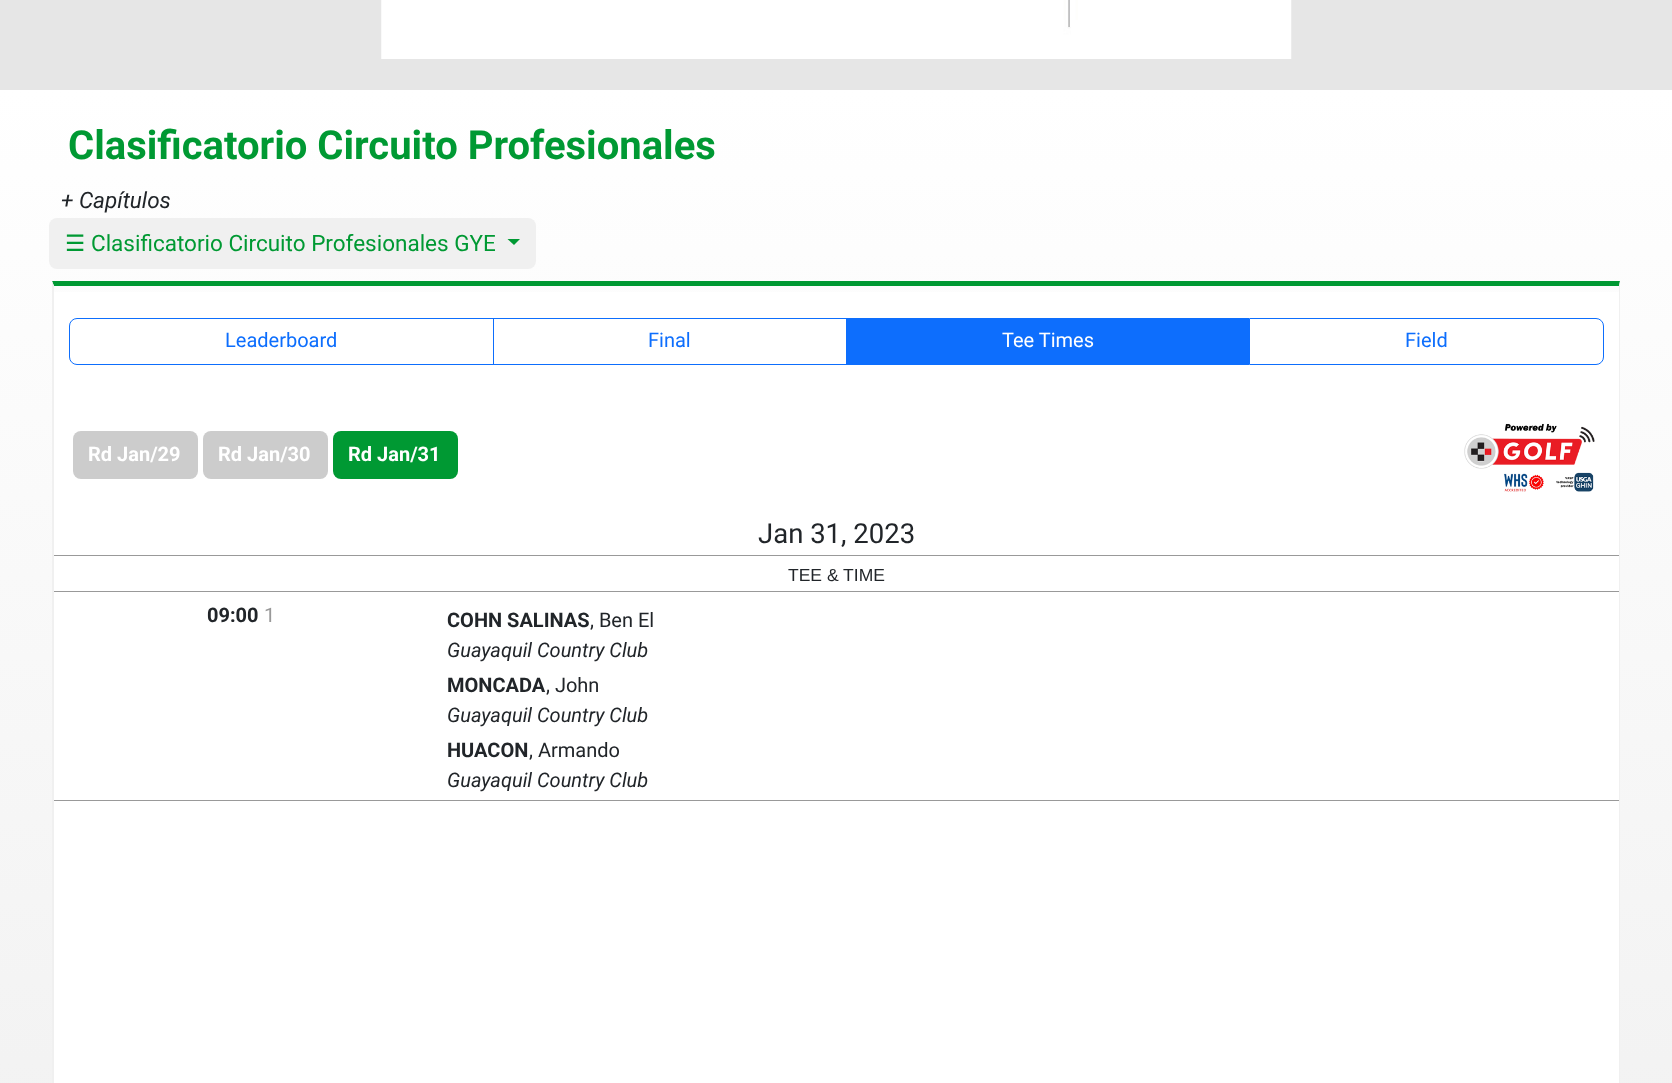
(async () => {
  const canvas = document.querySelector("canvas");
  canvas.width = 1672;
  canvas.height = 1083;
  const ctx = canvas.getContext("2d");
  ctx.miterLimit = 4;
  ctx.fontKerning = "normal";
  async function loadImage(src) {
    const img = new Image();
    img.src = src;
    await img.decode();
    return img;
  }
  let gradient, path;

  ctx.fillStyle = "#e6e6e6";
  ctx.fillRect(0, 0, 1672, 1083);
  ctx.drawImage(await loadImage("img/1.png"), 381, 0, 911, 59);
  gradient = ctx.createLinearGradient(836, 90, 836, 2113);
  gradient.addColorStop(0, "#ffffff");
  gradient.addColorStop(1, "#e6e6e6");
  ctx.fillStyle = gradient;
  ctx.fillRect(0, 90, 1672, 993);
  ctx.fillStyle = "#f0f0f0";
  ctx.beginPath();
  ctx.roundRect(49, 218, 487, 51, 8);
  ctx.fill();
  ctx.fillStyle = "#009933";
  path = new Path2D("M507.5 239H520L514 245Z");
  ctx.fill(path);
  ctx.fillStyle = "#ffffff";
  ctx.fillRect(54, 292, 1565, 791);
  ctx.fillStyle = "#009933";
  path = new Path2D("M52 281H1620L1619 286H54Z");
  ctx.fill(path);
  ctx.fillStyle = "#f0f0f0";
  path = new Path2D("M1620 281V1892L1619 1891V286Z");
  ctx.fill(path);
  path = new Path2D("M52 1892V281L54 286V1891Z");
  ctx.fill(path);
  ctx.beginPath();
  ctx.roundRect(69.5, 318.5, 424, 46, [7.5, 0, 0, 7.5]);
  ctx.strokeStyle = "#0d6efd";
  ctx.stroke();
  ctx.strokeRect(493.5, 318.5, 354, 46);
  ctx.fillStyle = "#0d6efd";
  ctx.fillRect(846, 318, 403, 47);
  ctx.beginPath();
  ctx.roundRect(1249.5, 318.5, 354, 46, [0, 7.5, 7.5, 0]);
  ctx.stroke();
  ctx.fillStyle = "#cccccc";
  ctx.beginPath();
  ctx.roundRect(73, 431, 125, 48, 8);
  ctx.fill();
  ctx.beginPath();
  ctx.roundRect(203, 431, 125, 48, 8);
  ctx.fill();
  ctx.fillStyle = "#009933";
  ctx.beginPath();
  ctx.roundRect(333, 431, 125, 48, 8);
  ctx.fill();
  ctx.drawImage(await loadImage("img/2.png"), 1464, 423, 131, 69);
  for (const [x, y, w, h, color] of [
    [54, 555, 1565, 1, "#999999"],
    [54, 591, 1565, 1, "#999999"],
    [54, 800, 1565, 1, "#999999"],
  ]) {
    ctx.fillStyle = color;
    ctx.fillRect(x, y, w, h);
  }
  ctx.font = "bold 40px Roboto";
  ctx.fillStyle = "#009933";
  ctx.fillText("Clasificatorio Circuito Profesionales", 68, 159);
  ctx.font = "italic 22.5px Roboto";
  ctx.fillStyle = "#212529";
  ctx.fillText("+ Capítulos", 61, 208);
  ctx.font = "22.5px DejaVu Sans";
  ctx.fillStyle = "#009933";
  ctx.fillText("☰", 65, 251);
  ctx.font = "22.5px Roboto";
  ctx.fillText("Clasificatorio Circuito Profesionales GYE", 91, 251);
  ctx.font = "20px Roboto";
  ctx.fillStyle = "#0d6efd";
  ctx.fillText("Leaderboard", 225, 347);
  ctx.fillText("Final", 648, 347);
  ctx.fillStyle = "#ffffff";
  ctx.fillText("Tee Times", 1002, 347);
  ctx.fillStyle = "#0d6efd";
  ctx.fillText("Field", 1405, 347);
  ctx.font = "bold 20px Roboto";
  ctx.fillStyle = "#ffffff";
  for (const [text, x, y] of [
    ["Rd Jan/29", 88, 461],
    ["Rd Jan/30", 218, 461],
    ["Rd Jan/31", 348, 461],
  ]) {
    ctx.fillText(text, x, y);
  }
  ctx.font = "27.5px Roboto";
  ctx.fillStyle = "#212529";
  ctx.fillText("Jan 31, 2023", 758, 543);
  ctx.font = "17.5px Liberation Sans";
  ctx.fillText("TEE & TIME", 788, 581);
  ctx.font = "bold 20px Roboto";
  ctx.fillText("09:00", 207, 622);
  ctx.font = "20px Roboto";
  ctx.fillStyle = "#999999";
  ctx.fillText("1", 264, 622);
  ctx.font = "bold 20px Roboto";
  ctx.fillStyle = "#212529";
  ctx.fillText("COHN SALINAS", 447, 627);
  ctx.font = "20px Roboto";
  ctx.fillText(", Ben El", 590, 627);
  ctx.font = "italic 20px Roboto";
  ctx.fillText("Guayaquil Country Club", 447, 657);
  ctx.font = "bold 20px Roboto";
  ctx.fillText("MONCADA", 447, 692);
  ctx.font = "20px Roboto";
  ctx.fillText(", John", 546, 692);
  ctx.font = "italic 20px Roboto";
  ctx.fillText("Guayaquil Country Club", 447, 722);
  ctx.font = "bold 20px Roboto";
  ctx.fillText("HUACON", 447, 757);
  ctx.font = "20px Roboto";
  ctx.fillText(", Armando", 529, 757);
  ctx.font = "italic 20px Roboto";
  ctx.fillText("Guayaquil Country Club", 447, 787);
})();
